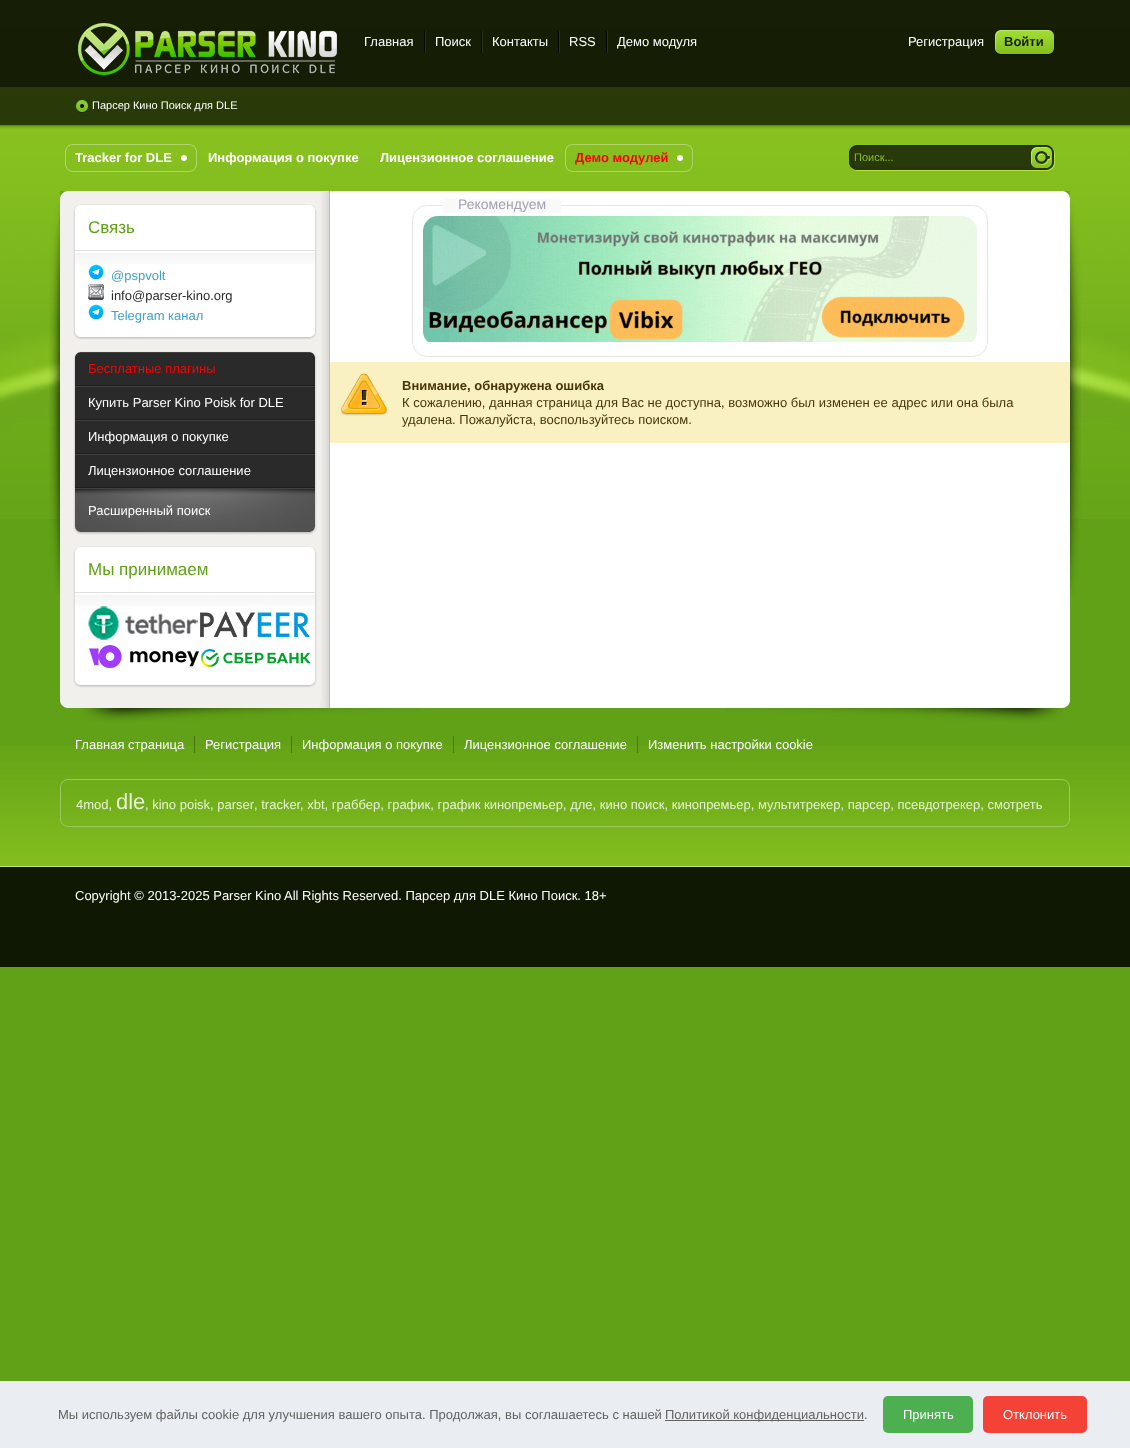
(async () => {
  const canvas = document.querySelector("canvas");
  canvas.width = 1130;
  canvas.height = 1448;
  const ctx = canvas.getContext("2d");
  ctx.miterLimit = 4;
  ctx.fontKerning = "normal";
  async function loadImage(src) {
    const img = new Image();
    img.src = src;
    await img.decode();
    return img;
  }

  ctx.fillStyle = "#61a117";
  ctx.fillRect(0, 0, 1130, 1448);
  ctx.drawImage(await loadImage("img/1.png"), 0, 0, 1130, 265);
  ctx.drawImage(await loadImage("img/2.png"), 0, 265, 1130, 254);
  ctx.drawImage(await loadImage("img/3.png"), 0, 125, 1130, 4);
  ctx.fillStyle = "rgba(0, 0, 0, 0.85)";
  ctx.fillRect(0, 0, 1130, 87);
  ctx.drawImage(await loadImage("img/4.png"), 78, 23, 259, 52);
  ctx.drawImage(await loadImage("img/5.png"), 424, 31, 2, 22);
  ctx.drawImage(await loadImage("img/6.png"), 481, 31, 2, 22);
  ctx.drawImage(await loadImage("img/7.png"), 558, 31, 2, 22);
  ctx.drawImage(await loadImage("img/7.png"), 606, 31, 2, 22);
  ctx.drawImage(await loadImage("img/8.png"), 995, 30, 59, 25);
  ctx.fillStyle = "rgba(0, 0, 0, 0.7)";
  ctx.fillRect(0, 87, 1130, 38);
  ctx.drawImage(await loadImage("img/9.png"), 76, 100, 12, 13);
  ctx.drawImage(await loadImage("img/10.png"), 65, 144, 116, 28);
  ctx.drawImage(await loadImage("img/11.png"), 181, 144, 16, 28);
  ctx.drawImage(await loadImage("img/12.png"), 565, 144, 112, 28);
  ctx.drawImage(await loadImage("img/13.png"), 677, 144, 16, 28);
  ctx.drawImage(await loadImage("img/14.png"), 849, 145, 179, 26);
  ctx.drawImage(await loadImage("img/15.png"), 1028, 145, 27, 26);
  ctx.drawImage(await loadImage("img/16.png"), 49, 203, 11, 392);
  ctx.drawImage(await loadImage("img/17.png"), 1070, 203, 11, 392);
  ctx.fillStyle = "#ffffff";
  ctx.fillRect(330, 191, 740, 517);
  ctx.drawImage(await loadImage("img/18.png"), 1063, 191, 7, 8);
  ctx.drawImage(await loadImage("img/19.png"), 60, 191, 270, 8);
  ctx.fillStyle = "#f1f0ed";
  ctx.fillRect(60, 199, 261, 501);
  ctx.drawImage(await loadImage("img/20.png"), 321, 199, 9, 501);
  ctx.fillStyle = "#ffffff";
  ctx.fillRect(75, 205, 240, 132);
  ctx.drawImage(await loadImage("img/21.png"), 73, 210, 244, 122);
  ctx.drawImage(await loadImage("img/22.png"), 73, 204, 244, 6);
  ctx.fillStyle = "#dedede";
  ctx.fillRect(75, 250, 240, 1);
  ctx.drawImage(await loadImage("img/23.png"), 75, 253, 240, 11);
  ctx.drawImage(await loadImage("img/24.png"), 88, 264, 16, 16);
  ctx.drawImage(await loadImage("img/25.png"), 88, 284, 16, 16);
  ctx.drawImage(await loadImage("img/24.png"), 88, 304, 16, 16);
  ctx.drawImage(await loadImage("img/26.png"), 73, 332, 244, 8);
  ctx.fillStyle = "#2a2a2a";
  ctx.fillRect(75, 353, 240, 134);
  ctx.drawImage(await loadImage("img/27.png"), 73, 357, 244, 170);
  ctx.fillStyle = "#404040";
  ctx.fillRect(75, 352, 240, 1);
  ctx.drawImage(await loadImage("img/28.png"), 73, 351, 244, 6);
  for (const [x, y, w, h, color] of [
    [75, 488, 240, 1, "#404040"],
    [75, 385, 240, 1, "#1e1e1e"],
    [75, 386, 240, 1, "#404040"],
    [75, 419, 240, 1, "#1e1e1e"],
    [75, 420, 240, 1, "#404040"],
    [75, 453, 240, 1, "#1e1e1e"],
    [75, 454, 240, 1, "#404040"],
    [75, 487, 240, 1, "#1e1e1e"],
  ]) {
    ctx.fillStyle = color;
    ctx.fillRect(x, y, w, h);
  }
  ctx.drawImage(await loadImage("img/29.png"), 75, 489, 240, 43);
  ctx.drawImage(await loadImage("img/30.png"), 73, 527, 244, 8);
  ctx.fillStyle = "#ffffff";
  ctx.fillRect(75, 547, 240, 138);
  ctx.drawImage(await loadImage("img/31.png"), 73, 552, 244, 128);
  ctx.drawImage(await loadImage("img/22.png"), 73, 546, 244, 6);
  ctx.fillStyle = "#dedede";
  ctx.fillRect(75, 592, 240, 1);
  ctx.drawImage(await loadImage("img/23.png"), 75, 595, 240, 11);
  ctx.drawImage(await loadImage("img/32.png"), 88, 606, 223, 62);
  ctx.drawImage(await loadImage("img/26.png"), 73, 680, 244, 8);
  ctx.beginPath();
  ctx.roundRect(412.5, 205.5, 575, 151, 14.5);
  ctx.strokeStyle = "#e6e6e6";
  ctx.stroke();
  ctx.fillStyle = "#f9f9f9";
  ctx.fillRect(443, 199, 118, 14);
  ctx.drawImage(await loadImage("img/33.png"), 423, 216, 554, 126);
  ctx.fillStyle = "#faf1c2";
  ctx.fillRect(330, 362, 740, 81);
  ctx.drawImage(await loadImage("img/34.png"), 340, 373, 48, 43);
  ctx.drawImage(await loadImage("img/35.png"), 1063, 700, 7, 8);
  ctx.drawImage(await loadImage("img/36.png"), 60, 700, 270, 8);
  ctx.drawImage(await loadImage("img/37.png"), 0, 746, 1130, 120);
  ctx.drawImage(await loadImage("img/38.png"), 726, 708, 337, 14);
  ctx.drawImage(await loadImage("img/39.png"), 82, 708, 337, 14);
  for (const [x, y, w, h, color] of [
    [194, 736, 1, 17, "#477511"],
    [291, 736, 1, 17, "#477511"],
    [453, 736, 1, 17, "#477511"],
    [637, 736, 1, 17, "#477511"],
  ]) {
    ctx.fillStyle = color;
    ctx.fillRect(x, y, w, h);
  }
  ctx.beginPath();
  ctx.roundRect(60.5, 779.5, 1009, 47, 7.5);
  ctx.strokeStyle = "#9ec764";
  ctx.stroke();
  for (const [x, y, w, h, color] of [
    [0, 867, 1130, 100, "#0e1803"],
    [0, 866, 1130, 1, "#c1e478"],
    [0, 1381, 1130, 67, "#eaedf2"],
    [665, 1420, 199, 1, "#626262"],
  ]) {
    ctx.fillStyle = color;
    ctx.fillRect(x, y, w, h);
  }
  ctx.fillStyle = "#4caf50";
  ctx.beginPath();
  ctx.roundRect(883, 1396, 90, 37, 5);
  ctx.fill();
  ctx.fillStyle = "#f44336";
  ctx.beginPath();
  ctx.roundRect(983, 1396, 104, 37, 5);
  ctx.fill();
  ctx.font = "13px Liberation Sans";
  ctx.fillStyle = "#ffffff";
  for (const [text, x, y] of [
    ["Главная", 364, 46],
    ["Поиск", 435, 46],
    ["Контакты", 492, 46],
    ["RSS", 569, 46],
    ["Демо модуля", 617, 46],
    ["Регистрация", 908, 46],
  ]) {
    ctx.fillText(text, x, y);
  }
  ctx.font = "bold 13px Liberation Sans";
  ctx.fillStyle = "#151e05";
  ctx.fillText("Войти", 1004, 46);
  ctx.font = "11px Liberation Sans";
  ctx.fillStyle = "#ffffff";
  ctx.fillText("Парсер Кино Поиcк для DLE", 92, 109);
  ctx.font = "bold 13px Liberation Sans";
  for (const [text, x, y] of [
    ["Tracker for DLE", 75, 162],
    ["Информация о покупке", 208, 162],
    ["Лицензионное соглашение", 380, 162],
  ]) {
    ctx.fillText(text, x, y);
  }
  ctx.fillStyle = "#ff0000";
  ctx.fillText("Демо модулей", 575, 162);
  ctx.font = "11px Liberation Sans";
  ctx.fillStyle = "#85bf1f";
  ctx.fillText("Поиск...", 854, 161);
  ctx.font = "17px Liberation Sans";
  ctx.fillStyle = "#61a117";
  ctx.fillText("Связь", 88, 233);
  ctx.font = "13px Liberation Sans";
  ctx.fillStyle = "#44a1c7";
  ctx.fillText("@pspvolt", 111, 280);
  ctx.fillStyle = "#2c2c2c";
  ctx.fillText("info@parser-kino.org", 111, 300);
  ctx.fillStyle = "#44a1c7";
  ctx.fillText("Telegram канал", 111, 320);
  ctx.fillStyle = "#ff0000";
  ctx.fillText("Бесплатные плагины", 88, 373);
  ctx.fillStyle = "#ffffff";
  for (const [text, x, y] of [
    ["Купить Parser Kino Poisk for DLE", 88, 407],
    ["Информация о покупке", 88, 441],
    ["Лицензионное соглашение", 88, 475],
    ["Расширенный поиск", 88, 515],
  ]) {
    ctx.fillText(text, x, y);
  }
  ctx.font = "17px Liberation Sans";
  ctx.fillStyle = "#61a117";
  ctx.fillText("Мы принимаем", 88, 575);
  ctx.font = "14px Liberation Sans";
  ctx.fillStyle = "#a5a1b2";
  ctx.fillText("Рекомендуем", 458, 209);
  ctx.font = "bold 13px Liberation Sans";
  ctx.fillStyle = "#483608";
  ctx.fillText("Внимание, обнаружена ошибка", 402, 390);
  ctx.font = "13px Liberation Sans";
  ctx.fillText("К сожалению, данная страница для Вас не доступна, возможно был изменен ее адрес или она была", 402, 407);
  ctx.fillText("удалена. Пожалуйста, воспользуйтесь поиском.", 402, 424);
  ctx.fillStyle = "#ffffff";
  for (const [text, x, y] of [
    ["Главная страница", 75, 749],
    ["Регистрация", 205, 749],
    ["Информация о покупке", 302, 749],
    ["Лицензионное соглашение", 464, 749],
    ["Изменить настройки cookie", 648, 749],
  ]) {
    ctx.fillText(text, x, y);
  }
  ctx.fillStyle = "#e6f4d5";
  ctx.fillText("4mod,", 76, 809);
  ctx.font = "22px Liberation Sans";
  ctx.fillText("dle", 116, 809);
  ctx.font = "13px Liberation Sans";
  for (const [text, x, y] of [
    [", kino poisk, parser", 145, 809],
    [", tracker", 254, 809],
    [", xbt, граббер, график, график кинопремьер, дле, кино поиск, кинопремьер, мультитрекер, парсер, псевдотрекер, смотреть", 300, 809],
  ]) {
    ctx.fillText(text, x, y);
  }
  ctx.fillStyle = "#ffffff";
  ctx.fillText("Copyright © 2013-2025 Parser Kino", 75, 900);
  ctx.fillText("All Rights Reserved. Парсер для DLE Кино Поиск. 18+", 284, 900);
  ctx.fillStyle = "#626262";
  ctx.fillText("Мы используем файлы cookie для улучшения вашего опыта. Продолжая, вы соглашаетесь с нашей", 58, 1419);
  ctx.fillText("Политикой конфиденциальности.", 665, 1419);
  ctx.fillStyle = "#ffffff";
  ctx.fillText("Принять", 903, 1419);
  ctx.fillText("Отклонить", 1003, 1419);
})();
